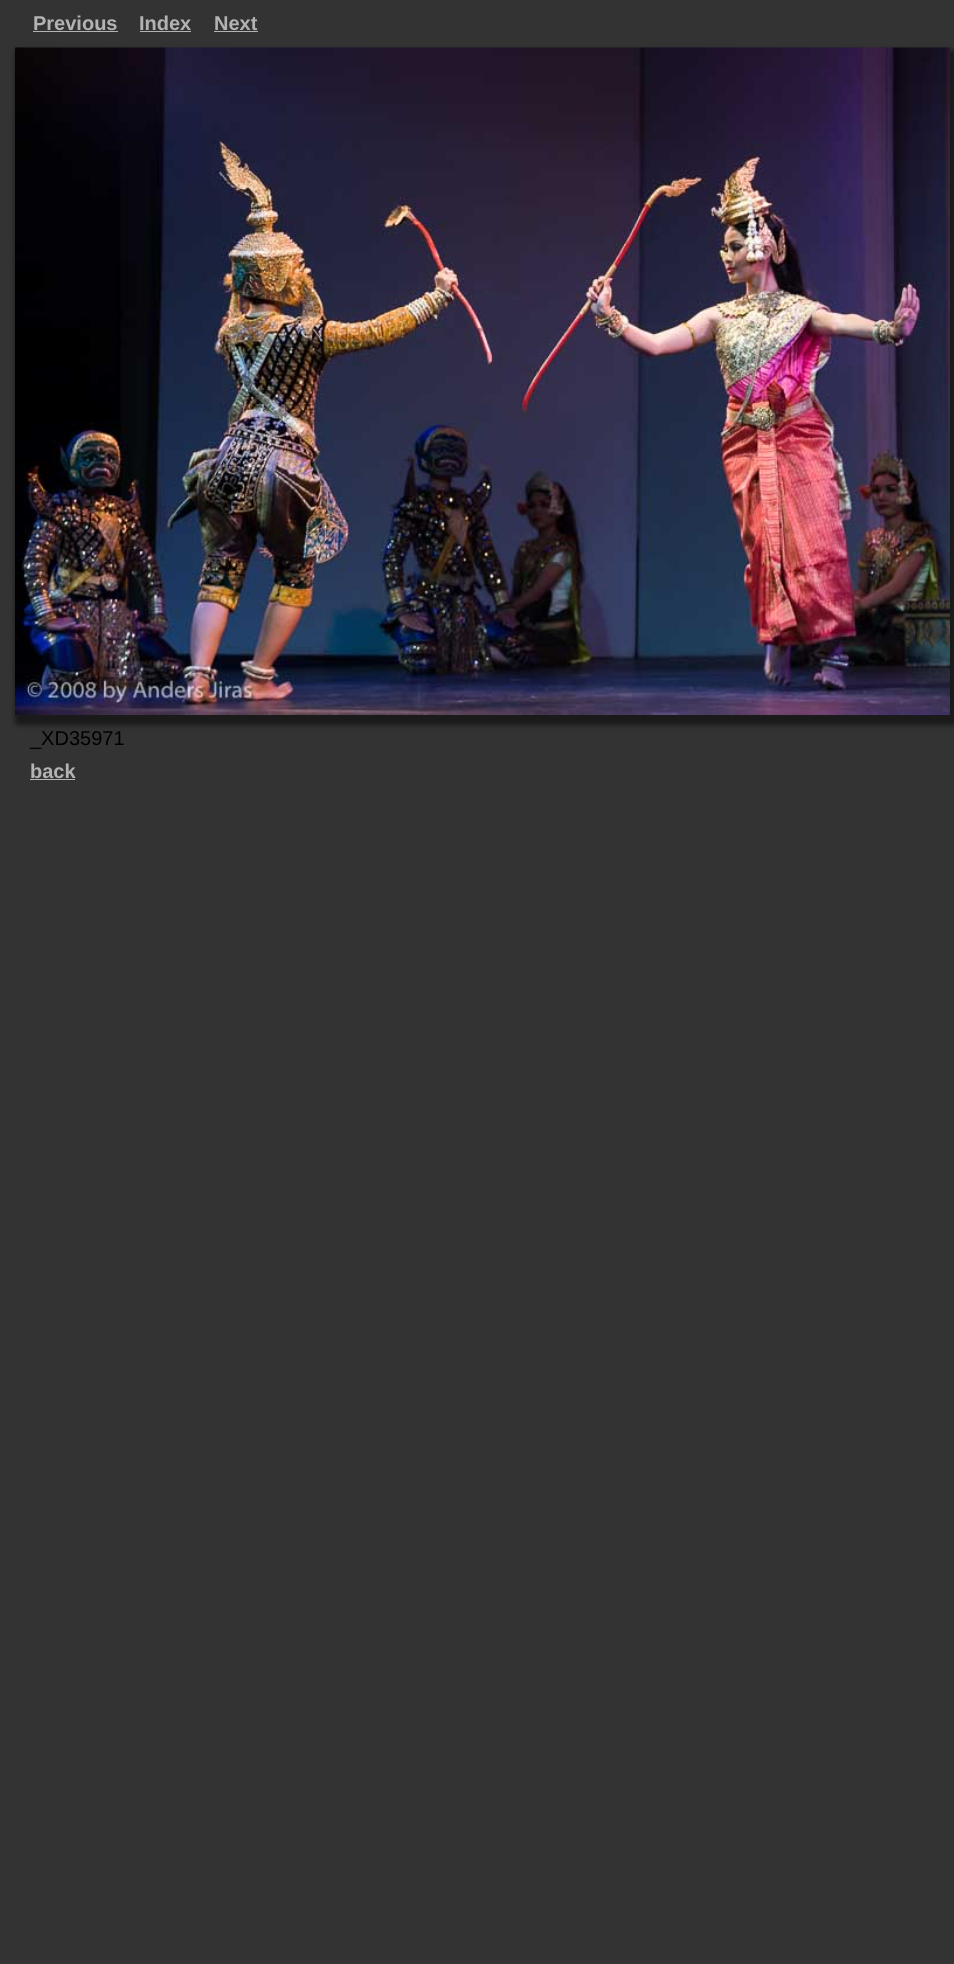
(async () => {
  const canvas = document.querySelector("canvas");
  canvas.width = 954;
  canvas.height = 1964;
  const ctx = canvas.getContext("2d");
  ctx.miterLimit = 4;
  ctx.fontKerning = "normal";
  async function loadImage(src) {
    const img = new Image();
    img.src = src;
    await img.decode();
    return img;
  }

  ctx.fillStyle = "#333333";
  ctx.fillRect(0, 0, 954, 1964);
  for (const [x, y, w, h, color] of [
    [33, 31, 85, 1, "#b3b3b3"],
    [140, 31, 51, 1, "#b3b3b3"],
    [214, 31, 44, 1, "#b3b3b3"],
  ]) {
    ctx.fillStyle = color;
    ctx.fillRect(x, y, w, h);
  }
  ctx.fillStyle = "#1a1a1a";
  ctx.filter = "blur(2.5px)";
  ctx.beginPath();
  ctx.rect(15, 50, 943, 675);
  ctx.fill();
  ctx.filter = "none";
  ctx.drawImage(await loadImage("img/1.png"), 15, 47, 935, 668);
  ctx.fillStyle = "#b3b3b3";
  ctx.fillRect(30, 779, 45, 1);
  ctx.font = "bold 20px Liberation Sans";
  for (const [text, x, y] of [
    ["Previous", 33, 30],
    ["Index", 139, 30],
    ["Next", 214, 30],
  ]) {
    ctx.fillText(text, x, y);
  }
  ctx.font = "20px Liberation Sans";
  ctx.fillStyle = "#000000";
  ctx.fillText("_XD35971", 30, 745);
  ctx.font = "bold 20px Liberation Sans";
  ctx.fillStyle = "#b3b3b3";
  ctx.fillText("back", 30, 778);
})();
